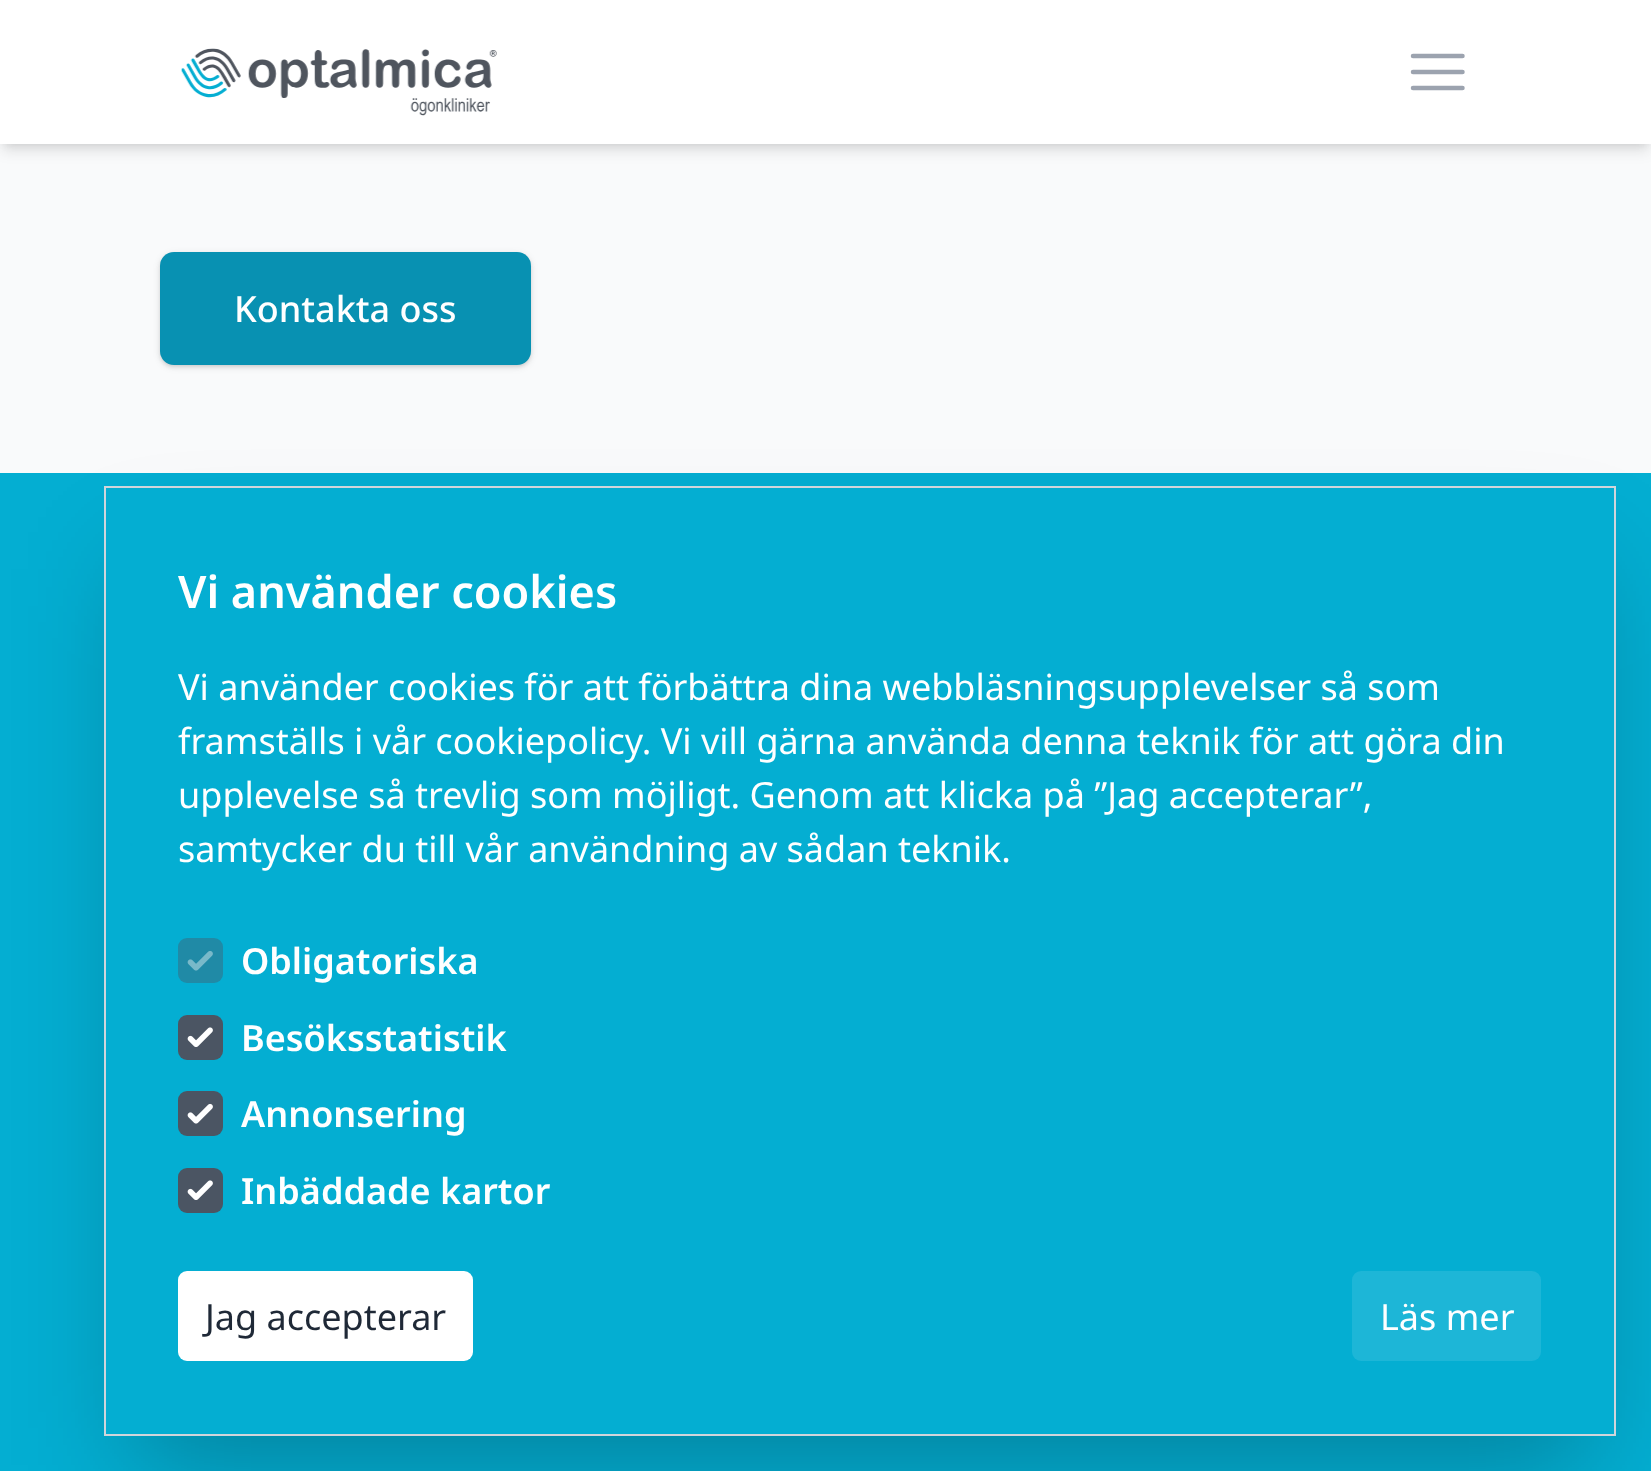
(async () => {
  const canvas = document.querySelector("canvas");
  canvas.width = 1651;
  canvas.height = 1471;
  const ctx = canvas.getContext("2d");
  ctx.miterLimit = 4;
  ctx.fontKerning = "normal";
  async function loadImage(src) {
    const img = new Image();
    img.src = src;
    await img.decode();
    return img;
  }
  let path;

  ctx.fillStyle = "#f9fafb";
  ctx.fillRect(0, 0, 1651, 1471);
  ctx.fillStyle = "rgba(0, 0, 0, 0.1)";
  ctx.filter = "blur(4.5px)";
  ctx.beginPath();
  ctx.rect(5, 9, 1642, 135);
  ctx.fill();
  ctx.filter = "none";
  ctx.filter = "blur(7px)";
  ctx.beginPath();
  ctx.rect(2, 11, 1647, 140);
  ctx.fill();
  ctx.filter = "none";
  ctx.fillStyle = "#ffffff";
  ctx.fillRect(0, 0, 1651, 144);
  ctx.drawImage(await loadImage("img/1.png"), 181, 48, 316, 68);
  path = new Path2D("M1413 56H1462.5M1413 72H1462.5M1413 88H1462.5");
  ctx.strokeStyle = "#9ca3af";
  ctx.lineWidth = 4.5;
  ctx.lineCap = "round";
  ctx.lineJoin = "round";
  ctx.stroke(path);
  ctx.fillStyle = "rgba(0, 0, 0, 0.1)";
  ctx.filter = "blur(2px)";
  ctx.beginPath();
  ctx.roundRect(162, 257, 367, 108, 11);
  ctx.fill();
  ctx.filter = "none";
  ctx.filter = "blur(3.5px)";
  ctx.beginPath();
  ctx.roundRect(160, 254, 371, 113, 14);
  ctx.fill();
  ctx.filter = "none";
  ctx.fillStyle = "rgba(0, 0, 0, 0.05)";
  ctx.filter = "blur(2px)";
  ctx.beginPath();
  ctx.roundRect(160, 254, 371, 113, 14);
  ctx.fill();
  ctx.filter = "none";
  ctx.fillStyle = "#0891b2";
  ctx.beginPath();
  ctx.roundRect(160, 252, 371, 113, 14);
  ctx.fill();
  ctx.fillStyle = "#04aed2";
  ctx.fillRect(0, 473, 1651, 998);
  ctx.fillStyle = "rgba(0, 0, 0, 0.25)";
  ctx.filter = "blur(56px)";
  ctx.beginPath();
  ctx.rect(131, 569, 1458, 896);
  ctx.fill();
  ctx.filter = "none";
  ctx.fillStyle = "#04aed2";
  ctx.beginPath();
  ctx.rect(105, 487, 1510, 948);
  ctx.fill();
  ctx.strokeStyle = "#d1d5db";
  ctx.lineWidth = 2;
  ctx.lineJoin = "miter";
  ctx.stroke();
  ctx.fillStyle = "#208aa6";
  ctx.beginPath();
  ctx.roundRect(178, 938, 45, 45, 9);
  ctx.fill();
  ctx.drawImage(await loadImage("img/2.png"), 187, 951, 26, 20);
  ctx.fillStyle = "#4b5563";
  ctx.beginPath();
  ctx.roundRect(178, 1015, 45, 45, 9);
  ctx.fill();
  ctx.drawImage(await loadImage("img/3.png"), 187, 1027, 26, 20);
  ctx.beginPath();
  ctx.roundRect(178, 1091, 45, 45, 9);
  ctx.fill();
  ctx.drawImage(await loadImage("img/4.png"), 187, 1103, 26, 21);
  ctx.beginPath();
  ctx.roundRect(178, 1168, 45, 45, 9);
  ctx.fill();
  ctx.drawImage(await loadImage("img/3.png"), 187, 1180, 26, 20);
  ctx.fillStyle = "#ffffff";
  ctx.beginPath();
  ctx.roundRect(178, 1271, 295, 90, 9);
  ctx.fill();
  ctx.fillStyle = "#1db6d7";
  ctx.beginPath();
  ctx.roundRect(1352, 1271, 189, 90, 9);
  ctx.fill();
  ctx.font = "500 36px Noto Sans";
  ctx.fillStyle = "#ffffff";
  ctx.fillText("Kontakta oss", 234, 322);
  ctx.font = "600 45px Noto Sans";
  ctx.fillText("Vi använder cookies", 178, 608);
  ctx.font = "36px Noto Sans";
  for (const [text, x, y] of [
    ["Vi använder cookies för att förbättra dina webbläsningsupplevelser så som", 178, 700],
    ["framställs i vår cookiepolicy. Vi vill gärna använda denna teknik för att göra din", 178, 754],
    ["upplevelse så trevlig som möjligt. Genom att klicka på ”Jag accepterar”,", 178, 808],
    ["samtycker du till vår användning av sådan teknik.", 178, 862],
  ]) {
    ctx.fillText(text, x, y);
  }
  ctx.font = "600 36px Noto Sans";
  for (const [text, x, y] of [
    ["Obligatoriska", 241, 974],
    ["Besöksstatistik", 241, 1051],
    ["Annonsering", 241, 1127],
    ["Inbäddade kartor", 241, 1204],
  ]) {
    ctx.fillText(text, x, y);
  }
  ctx.font = "36px Noto Sans";
  ctx.fillStyle = "#1f2937";
  ctx.fillText("Jag accepterar", 205, 1330);
  ctx.fillStyle = "#ffffff";
  ctx.fillText("Läs mer", 1380, 1330);
})();
